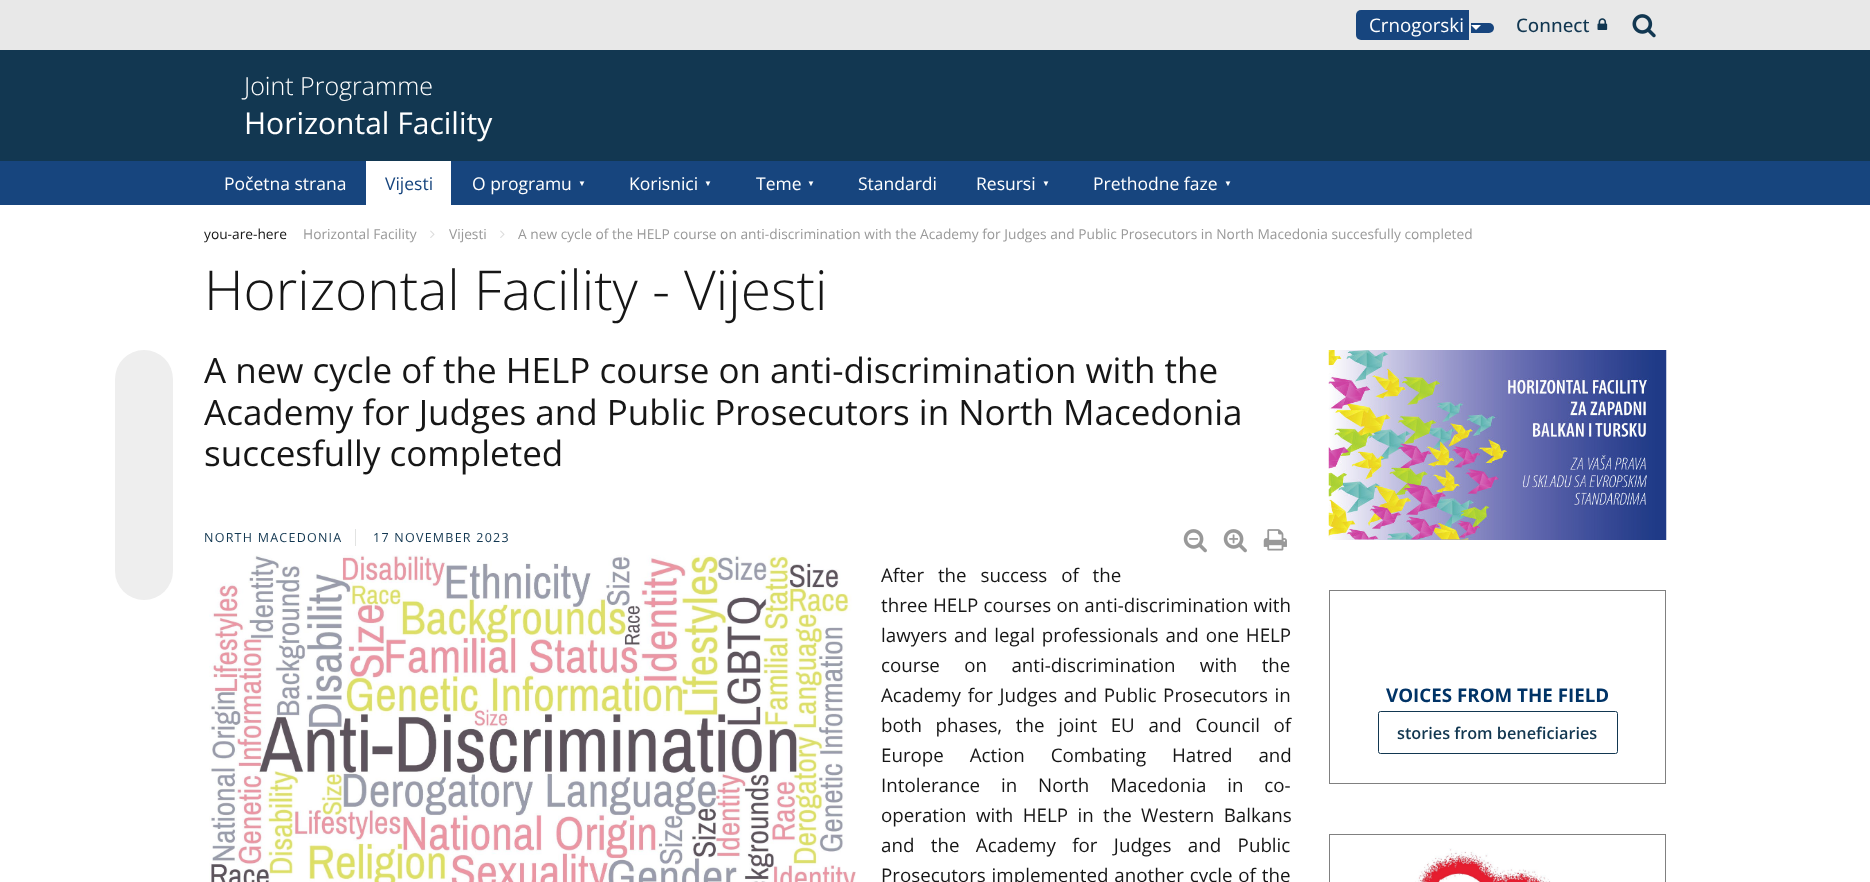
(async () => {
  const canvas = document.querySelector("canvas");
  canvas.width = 1870;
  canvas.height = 882;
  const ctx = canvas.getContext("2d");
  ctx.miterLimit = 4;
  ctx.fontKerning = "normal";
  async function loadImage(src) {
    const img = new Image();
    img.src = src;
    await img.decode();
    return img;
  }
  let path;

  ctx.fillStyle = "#ffffff";
  ctx.fillRect(0, 0, 1870, 882);
  ctx.fillStyle = "#e8e8e8";
  ctx.fillRect(0, 0, 1870, 50);
  ctx.fillStyle = "#17457e";
  ctx.beginPath();
  ctx.roundRect(1356, 10, 113, 30, [5, 0, 0, 5]);
  ctx.fill();
  ctx.beginPath();
  ctx.roundRect(1471, 23, 23, 10, [0, 5, 5, 0]);
  ctx.fill();
  ctx.fillStyle = "#ffffff";
  path = new Path2D("M1471 25H1481L1476 30Z");
  ctx.fill(path);
  ctx.drawImage(await loadImage("img/1.png"), 1597, 18, 11, 12);
  ctx.drawImage(await loadImage("img/2.png"), 1632, 14, 24, 24);
  for (const [x, y, w, h, color] of [
    [0, 50, 1870, 111, "#123751"],
    [0, 161, 1870, 44, "#17457e"],
    [366, 161, 85, 44, "#ffffff"],
  ]) {
    ctx.fillStyle = color;
    ctx.fillRect(x, y, w, h);
  }
  ctx.drawImage(await loadImage("img/3.png"), 430, 230, 5, 8);
  ctx.drawImage(await loadImage("img/3.png"), 500, 230, 5, 8);
  ctx.fillStyle = "#eeeeee";
  ctx.beginPath();
  ctx.roundRect(115, 350, 58, 250, 29);
  ctx.fill();
  ctx.fillStyle = "#e2e3e2";
  ctx.fillRect(355, 529, 1, 17);
  ctx.drawImage(await loadImage("img/4.png"), 1183, 529, 24, 24);
  ctx.drawImage(await loadImage("img/5.png"), 1223, 529, 24, 24);
  ctx.drawImage(await loadImage("img/6.png"), 1263, 529, 24, 22);
  ctx.drawImage(await loadImage("img/7.png"), 209, 555, 647, 327);
  ctx.drawImage(await loadImage("img/8.png"), 1328, 350, 339, 190);
  for (const [x, y, w, h, color] of [
    [1329, 590, 337, 1, "#808080"],
    [1665, 590, 1, 194, "#808080"],
    [1329, 783, 337, 1, "#808080"],
    [1329, 590, 1, 194, "#808080"],
  ]) {
    ctx.fillStyle = color;
    ctx.fillRect(x, y, w, h);
  }
  ctx.beginPath();
  ctx.roundRect(1378.5, 711.5, 239, 42, 2);
  ctx.strokeStyle = "#123751";
  ctx.stroke();
  for (const [x, y, w, h, color] of [
    [1329, 834, 337, 1, "#808080"],
    [1665, 834, 1, 48, "#808080"],
    [1329, 834, 1, 48, "#808080"],
  ]) {
    ctx.fillStyle = color;
    ctx.fillRect(x, y, w, h);
  }
  ctx.drawImage(await loadImage("img/9.png"), 1415, 848, 136, 34);
  ctx.font = "18.75px Open Sans";
  ctx.fillStyle = "#ffffff";
  ctx.fillText("Crnogorski", 1369, 32);
  ctx.font = "500 18.75px Open Sans";
  ctx.fillStyle = "#123751";
  ctx.fillText("Connect", 1516, 32);
  ctx.font = "300 25px Open Sans";
  ctx.fillStyle = "#ffffff";
  ctx.fillText("Joint Programme", 244, 95);
  ctx.font = "30px Open Sans";
  ctx.fillText("Horizontal Facility", 244, 134);
  ctx.font = "17.5px Open Sans";
  ctx.fillText("Početna strana", 224, 190);
  ctx.fillStyle = "#17457e";
  ctx.fillText("Vijesti", 385, 190);
  ctx.fillStyle = "#ffffff";
  ctx.fillText("O programu", 472, 190);
  ctx.letterSpacing = "5px";
  ctx.font = "8px Liberation Sans";
  ctx.fillText("▼", 578, 186);
  ctx.letterSpacing = "0px";
  ctx.font = "17.5px Open Sans";
  ctx.fillText("Korisnici", 629, 190);
  ctx.letterSpacing = "5px";
  ctx.font = "8px Liberation Sans";
  ctx.fillText("▼", 704, 186);
  ctx.letterSpacing = "0px";
  ctx.font = "17.5px Open Sans";
  ctx.fillText("Teme", 756, 190);
  ctx.letterSpacing = "5px";
  ctx.font = "8px Liberation Sans";
  ctx.fillText("▼", 807, 186);
  ctx.letterSpacing = "0px";
  ctx.font = "17.5px Open Sans";
  ctx.fillText("Standardi", 858, 190);
  ctx.fillText("Resursi", 976, 190);
  ctx.letterSpacing = "5px";
  ctx.font = "8px Liberation Sans";
  ctx.fillText("▼", 1042, 186);
  ctx.letterSpacing = "0px";
  ctx.font = "17.5px Open Sans";
  ctx.fillText("Prethodne faze", 1093, 190);
  ctx.letterSpacing = "5px";
  ctx.font = "8px Liberation Sans";
  ctx.fillText("▼", 1224, 186);
  ctx.letterSpacing = "0px";
  ctx.font = "13.75px Open Sans";
  ctx.fillStyle = "#161616";
  ctx.fillText("you-are-here", 204, 239);
  ctx.fillStyle = "#999999";
  for (const [text, x, y] of [
    ["Horizontal Facility", 303, 239],
    ["Vijesti", 449, 239],
    ["A new cycle of the HELP course on anti-discrimination with the Academy for Judges and Public Prosecutors in North Macedonia succesfully completed", 518, 239],
  ]) {
    ctx.fillText(text, x, y);
  }
  ctx.font = "300 55px Open Sans";
  ctx.fillStyle = "#161616";
  ctx.fillText("Horizontal Facility - Vijesti", 204, 310);
  ctx.font = "35px Open Sans";
  for (const [text, x, y] of [
    ["A new cycle of the HELP course on anti-discrimination with the", 204, 383],
    ["Academy for Judges and Public Prosecutors in North Macedonia", 204, 425],
    ["succesfully completed", 204, 466],
  ]) {
    ctx.fillText(text, x, y);
  }
  ctx.letterSpacing = "1.25px";
  ctx.font = "12.5px Open Sans";
  ctx.fillStyle = "#123751";
  ctx.fillText("NORTH MACEDONIA", 204, 542);
  ctx.fillText("17 NOVEMBER 2023", 373, 542);
  ctx.letterSpacing = "0px";
  ctx.wordSpacing = "9px";
  ctx.font = "18.75px Open Sans";
  ctx.fillStyle = "#161616";
  ctx.fillText("After the success of the", 881, 582);
  ctx.wordSpacing = "0.25px";
  ctx.fillText("three HELP courses on anti-discrimination with", 881, 612);
  ctx.wordSpacing = "2px";
  ctx.fillText("lawyers and legal professionals and one HELP", 881, 642);
  ctx.wordSpacing = "19.5px";
  ctx.fillText("course on anti-discrimination with the", 881, 672);
  ctx.wordSpacing = "1.75px";
  ctx.fillText("Academy for Judges and Public Prosecutors in", 881, 702);
  ctx.wordSpacing = "8.75px";
  ctx.fillText("both phases, the joint EU and Council of", 881, 732);
  ctx.wordSpacing = "21px";
  ctx.fillText("Europe Action Combating Hatred and", 881, 762);
  ctx.wordSpacing = "16px";
  ctx.fillText("Intolerance in North Macedonia in co-", 881, 792);
  ctx.wordSpacing = "4.5px";
  ctx.fillText("operation with HELP in the Western Balkans", 881, 822);
  ctx.wordSpacing = "11.5px";
  ctx.fillText("and the Academy for Judges and Public", 881, 852);
  ctx.wordSpacing = "1px";
  ctx.fillText("Prosecutors implemented another cycle of the", 881, 882);
  ctx.wordSpacing = "0px";
  ctx.font = "bold 18.75px Open Sans";
  ctx.fillStyle = "#003366";
  ctx.fillText("VOICES FROM THE FIELD", 1386, 702);
  ctx.font = "600 16.25px Open Sans";
  ctx.fillStyle = "#123751";
  ctx.fillText("stories from beneficiaries", 1397, 739);
})();
